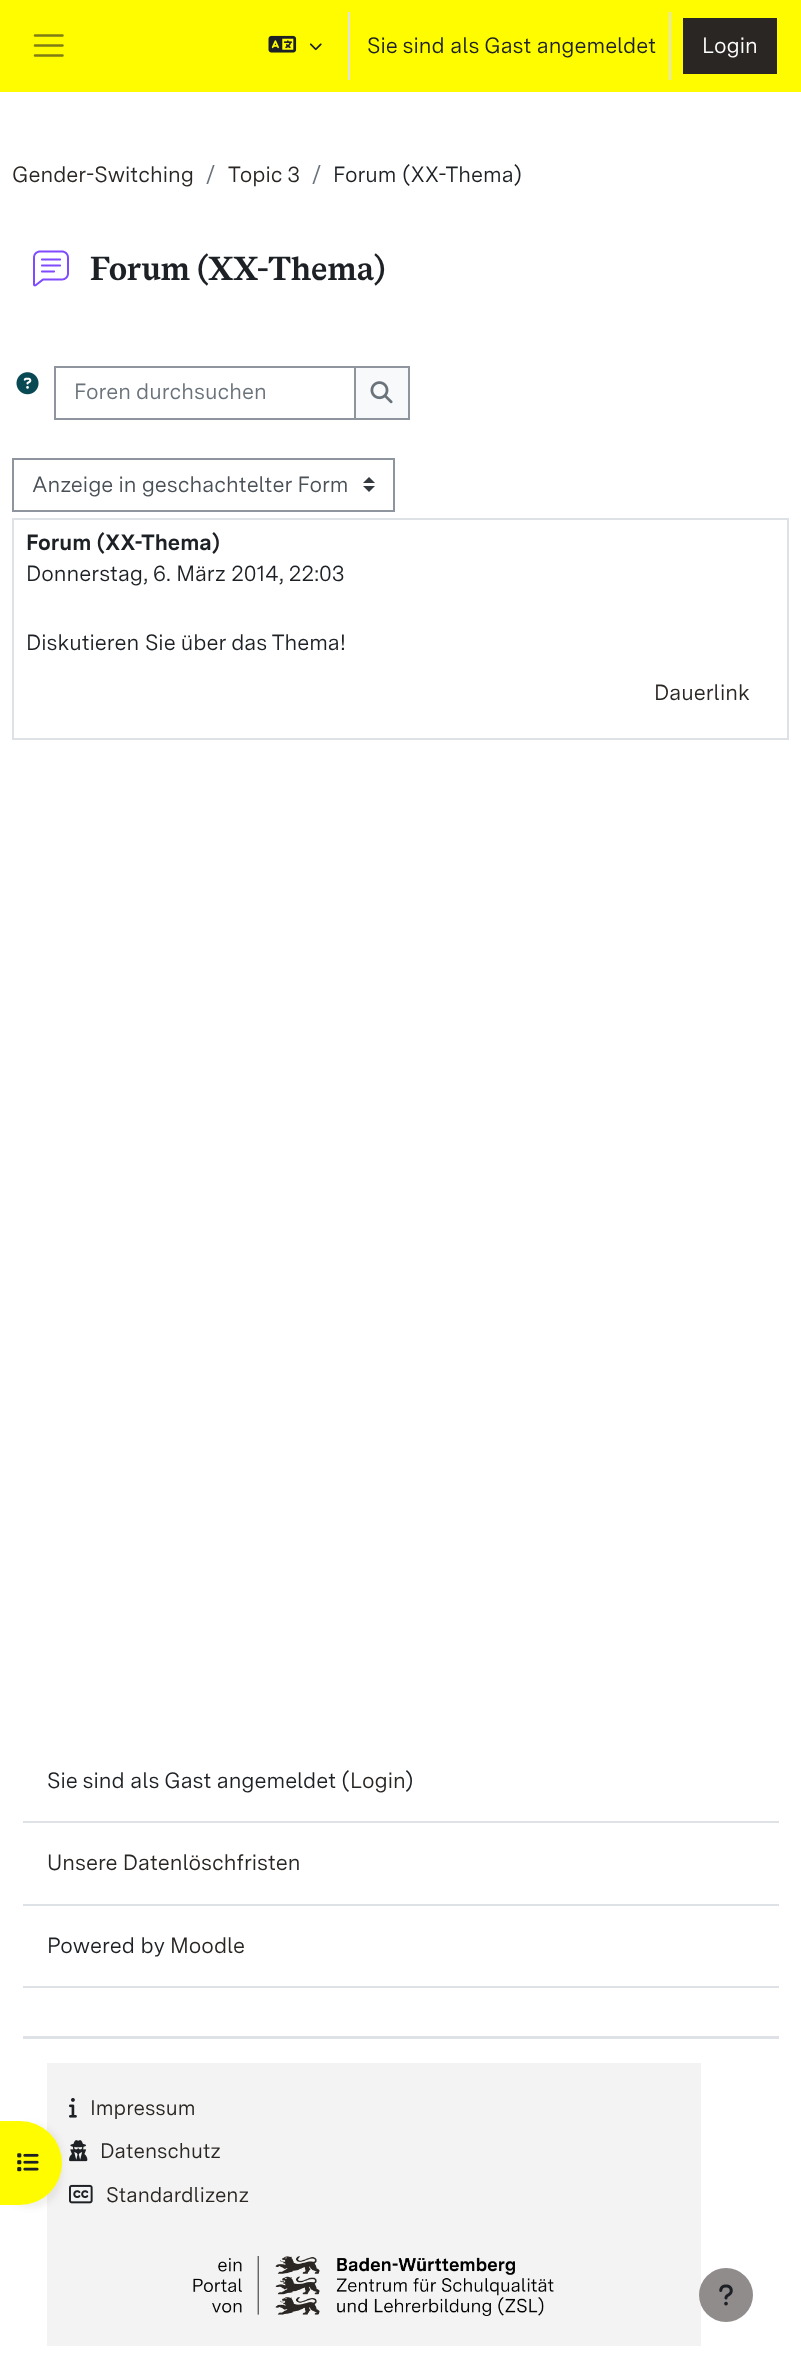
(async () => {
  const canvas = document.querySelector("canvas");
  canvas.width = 801;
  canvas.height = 2370;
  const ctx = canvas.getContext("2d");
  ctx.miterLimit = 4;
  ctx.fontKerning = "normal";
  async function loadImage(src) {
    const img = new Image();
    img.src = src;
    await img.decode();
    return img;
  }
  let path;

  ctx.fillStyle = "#ffffff";
  ctx.fillRect(0, 0, 801, 2370);
  ctx.fillStyle = "#fffc00";
  ctx.fillRect(0, 0, 801, 92);
  path = new Path2D("M35 35.5H62.5M35 45.5H62.5M35 55.5H62.5");
  ctx.strokeStyle = "#7f7c15";
  ctx.lineWidth = 2.5;
  ctx.lineCap = "round";
  ctx.stroke(path);
  ctx.drawImage(await loadImage("img/1.png"), 268, 35, 29, 18);
  ctx.drawImage(await loadImage("img/2.png"), 309, 43, 13, 8);
  for (const [x, y, w, h, color] of [
    [348, 12, 2, 68, "#dee2e6"],
    [669, 12, 2, 68, "#dee2e6"],
    [683, 18, 94, 56, "#2a2623"],
  ]) {
    ctx.fillStyle = color;
    ctx.fillRect(x, y, w, h);
  }
  ctx.drawImage(await loadImage("img/3.png"), 33, 250, 36, 37);
  ctx.drawImage(await loadImage("img/4.png"), 16, 372, 23, 23);
  ctx.strokeStyle = "#8f959e";
  ctx.lineWidth = 2;
  ctx.strokeRect(55, 367, 300, 52);
  ctx.fillStyle = "#f8f9fa";
  ctx.beginPath();
  ctx.rect(355, 367, 54, 52);
  ctx.fill();
  ctx.stroke();
  ctx.drawImage(await loadImage("img/5.png"), 370, 381, 23, 23);
  ctx.drawImage(await loadImage("img/6.png"), 363, 477, 12, 15);
  ctx.strokeRect(13, 459, 381, 52);
  ctx.strokeStyle = "#dee2e6";
  ctx.strokeRect(13, 519, 775, 220);
  ctx.fillStyle = "#f4f3f3";
  ctx.fillRect(47, 2063, 654, 283);
  ctx.drawImage(await loadImage("img/9.png"), 69, 2098, 8, 20);
  ctx.drawImage(await loadImage("img/10.png"), 69, 2140, 19, 22);
  ctx.drawImage(await loadImage("img/11.png"), 69, 2184, 24, 20);
  ctx.fillStyle = "rgba(42, 38, 35, 0.07)";
  ctx.filter = "blur(3px)";
  ctx.beginPath();
  ctx.roundRect(0, 2124, 62, 84, 42);
  ctx.fill();
  ctx.filter = "none";
  ctx.fillStyle = "#fffc00";
  ctx.beginPath();
  ctx.roundRect(0, 2121, 62, 84, [0, 42, 42, 0]);
  ctx.fill();
  ctx.drawImage(await loadImage("img/7.png"), 17, 2153, 22, 19);
  for (const [x, y, w, h, color] of [
    [23, 1821, 756, 2, "#dee2e6"],
    [23, 1904, 756, 2, "#dee2e6"],
    [23, 1986, 756, 2, "#dee2e6"],
    [23, 2036, 756, 3, "#dee2e6"],
  ]) {
    ctx.fillStyle = color;
    ctx.fillRect(x, y, w, h);
  }
  ctx.fillStyle = "#918c8c";
  ctx.beginPath();
  ctx.arc(726, 2295, 27, 0, Math.PI * 2);
  ctx.fill();
  ctx.drawImage(await loadImage("img/8.png"), 719, 2284, 14, 22);
  ctx.drawImage(await loadImage("img/12.png"), 193, 2256, 361, 60);
  ctx.font = "22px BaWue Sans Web";
  ctx.fillStyle = "#1d2125";
  ctx.fillText("Sie sind als Gast angemeldet", 367, 53);
  ctx.fillStyle = "#ffffff";
  ctx.fillText("Login", 702, 53);
  ctx.fillStyle = "#2a2623";
  ctx.fillText("Gender-Switching", 12, 182);
  ctx.fillStyle = "#6a737b";
  ctx.fillText("/", 206, 182);
  ctx.fillStyle = "#2a2623";
  ctx.fillText("Topic 3", 228, 182);
  ctx.fillStyle = "#6a737b";
  ctx.fillText("/", 312, 182);
  ctx.fillStyle = "#1d2125";
  ctx.fillText("Forum (XX-Thema)", 333, 182);
  ctx.font = "bold 33.25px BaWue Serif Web";
  ctx.fillText("Forum (XX-Thema)", 90, 280);
  ctx.font = "22px BaWue Sans Web";
  ctx.fillStyle = "#6a737b";
  ctx.fillText("Foren durchsuchen", 74, 399);
  ctx.fillStyle = "#495057";
  ctx.fillText("Anzeige in geschachtelter Form", 32, 492);
  ctx.font = "bold 22px BaWue Sans Web";
  ctx.fillStyle = "#1d2125";
  ctx.fillText("Forum (XX-Thema)", 26, 550);
  ctx.font = "22px BaWue Sans Web";
  ctx.fillText("Donnerstag, 6. März 2014, 22:03", 26, 581);
  ctx.fillText("Diskutieren Sie über das Thema!", 26, 650);
  ctx.fillStyle = "#2a2623";
  ctx.fillText("Dauerlink", 654, 700);
  ctx.fillStyle = "#1d2125";
  ctx.fillText("Sie sind als Gast angemeldet (", 47, 1788);
  ctx.fillStyle = "#2a2623";
  ctx.fillText("Login", 350, 1788);
  ctx.fillStyle = "#1d2125";
  ctx.fillText(")", 405, 1788);
  ctx.fillStyle = "#2a2623";
  ctx.fillText("Unsere Datenlöschfristen", 47, 1870);
  ctx.fillStyle = "#1d2125";
  ctx.fillText("Powered by", 47, 1953);
  ctx.fillStyle = "#2a2623";
  ctx.fillText("Moodle", 170, 1953);
  ctx.font = "21px BaWue Sans Web";
  for (const [text, x, y] of [
    ["Impressum", 90, 2115],
    ["Datenschutz", 100, 2158],
    ["Standardlizenz", 106, 2202],
  ]) {
    ctx.fillText(text, x, y);
  }
})();
